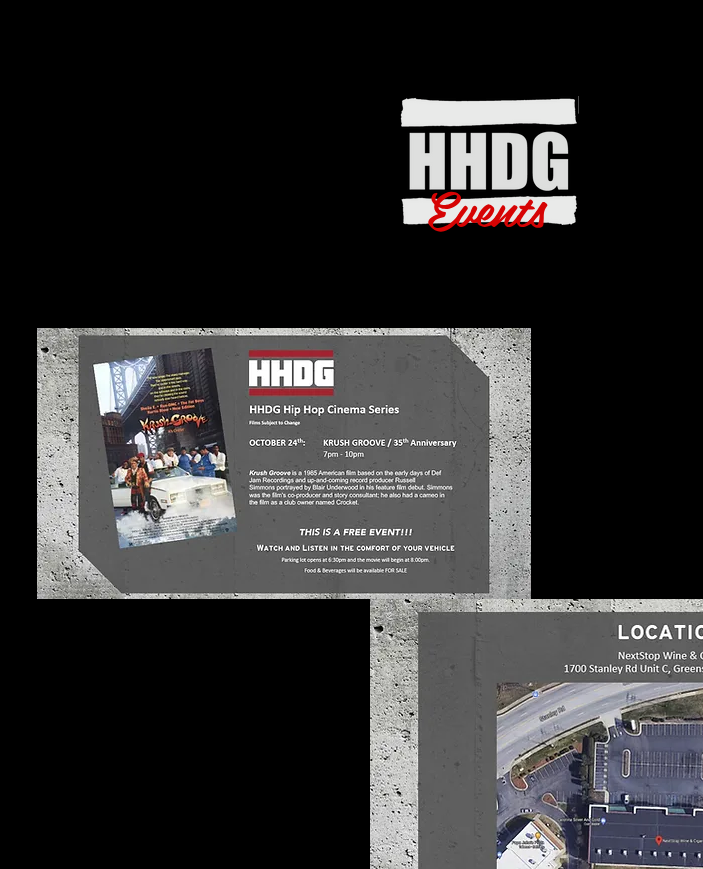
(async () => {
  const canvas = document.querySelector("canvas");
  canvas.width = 703;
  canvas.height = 869;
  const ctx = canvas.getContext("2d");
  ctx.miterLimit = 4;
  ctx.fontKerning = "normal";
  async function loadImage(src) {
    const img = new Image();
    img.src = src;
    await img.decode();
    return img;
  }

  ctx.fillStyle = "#000000";
  ctx.fillRect(0, 0, 703, 869);
  ctx.drawImage(await loadImage("img/1.png"), 400, 96, 179, 129);
  ctx.drawImage(await loadImage("img/2.png"), 37, 328, 494, 271);
  ctx.drawImage(await loadImage("img/3.png"), 370, 599, 333, 270);
  ctx.font = "50px 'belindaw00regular'";
  ctx.fillStyle = "#d60404";
  ctx.fillText("Events", 427, 227);
})();
